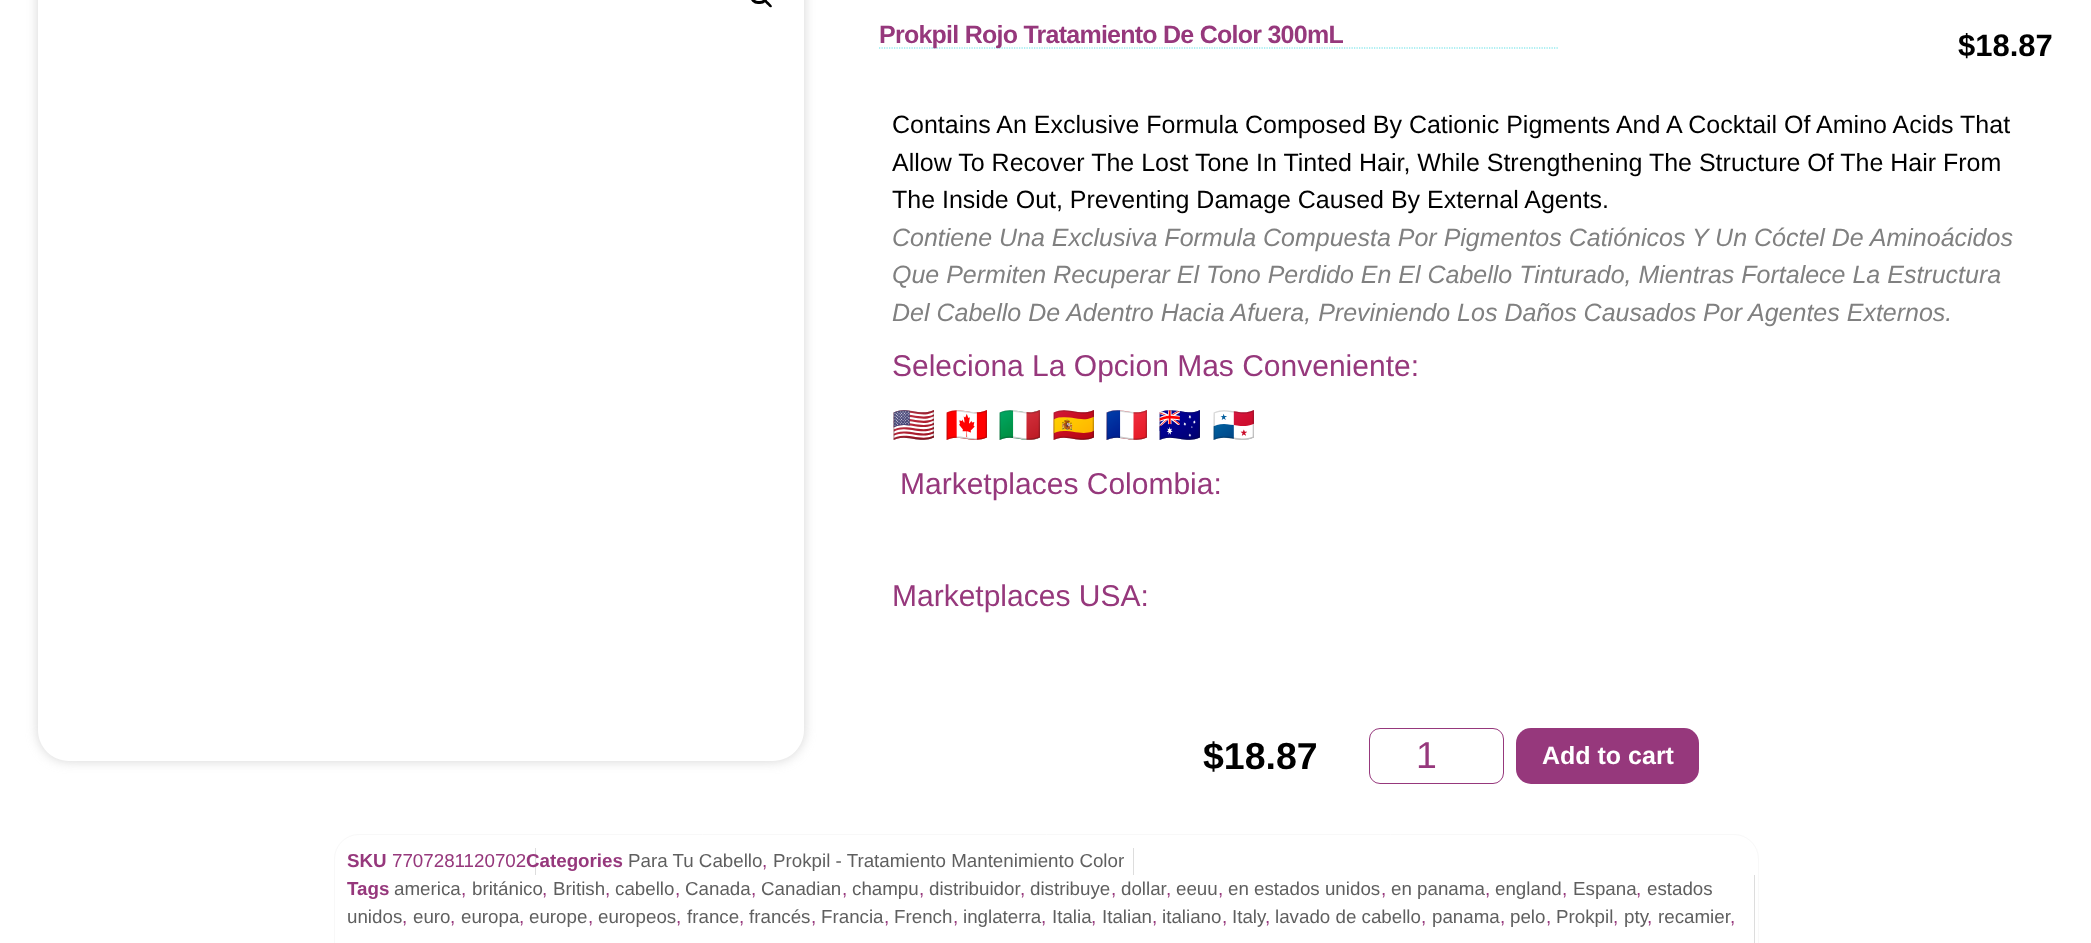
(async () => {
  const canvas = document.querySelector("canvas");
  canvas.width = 2091;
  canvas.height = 943;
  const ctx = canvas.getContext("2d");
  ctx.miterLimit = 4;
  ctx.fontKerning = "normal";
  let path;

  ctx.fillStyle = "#ffffff";
  ctx.fillRect(0, 0, 2091, 943);
  ctx.save();
  path = new Path2D("M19 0H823V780H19ZM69-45H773C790-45 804-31 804-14V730C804 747 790 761 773 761H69C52 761 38 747 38 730V-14C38-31 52-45 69-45Z");
  ctx.clip(path, "evenodd");
  ctx.fillStyle = "rgba(172, 172, 172, 0.5)";
  ctx.filter = "blur(6px)";
  ctx.beginPath();
  ctx.roundRect(38, -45, 766, 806, 31);
  ctx.fill();
  ctx.filter = "none";
  ctx.restore();
  ctx.beginPath();
  ctx.roundRect(751.5, -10.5, 15, 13, 7.5);
  ctx.strokeStyle = "#000000";
  ctx.lineWidth = 3;
  ctx.stroke();
  ctx.fillStyle = "#000000";
  path = new Path2D("M764.5 0C766-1.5 768 2 769 2.5C769.5 3.5 773 5.5 771.5 7C770 8.5 768 5 767 4.5C766.5 3.5 763 1.5 764.5 0Z");
  ctx.fill(path);
  path = new Path2D("M879 48H1559");
  ctx.strokeStyle = "#5edfe5";
  ctx.lineWidth = 1.2;
  ctx.setLineDash([1.25, 1.25]);
  ctx.stroke(path);
  ctx.beginPath();
  ctx.roundRect(1369.5, 728.5, 134, 55, 10.5);
  ctx.strokeStyle = "#96387c";
  ctx.lineWidth = 1;
  ctx.setLineDash([]);
  ctx.stroke();
  ctx.fillStyle = "#96387c";
  ctx.beginPath();
  ctx.roundRect(1516, 728, 183, 56, 15);
  ctx.fill();
  ctx.beginPath();
  ctx.roundRect(334.5, 834.5, 1424, 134, 24.5);
  ctx.strokeStyle = "#f8f8f8";
  ctx.stroke();
  for (const [x, y, w, h, color] of [
    [535, 848, 1, 27, "#dddddd"],
    [1133, 848, 1, 27, "#dddddd"],
    [1754, 875, 1, 68, "#dddddd"],
  ]) {
    ctx.fillStyle = color;
    ctx.fillRect(x, y, w, h);
  }
  ctx.letterSpacing = "-0.75px";
  ctx.font = "bold 25px Liberation Sans";
  ctx.fillStyle = "#96387c";
  ctx.fillText("Prokpil Rojo Tratamiento De Color 300mL", 879, 43);
  ctx.letterSpacing = "0px";
  ctx.font = "bold 31px Liberation Sans";
  ctx.fillStyle = "#000000";
  ctx.fillText("$18.87", 1958, 56);
  ctx.font = "25px Liberation Sans";
  for (const [text, x, y] of [
    ["Contains An Exclusive Formula Composed By Cationic Pigments And A Cocktail Of Amino Acids That", 892, 133],
    ["Allow To Recover The Lost Tone In Tinted Hair, While Strengthening The Structure Of The Hair From", 892, 171],
    ["The Inside Out, Preventing Damage Caused By External Agents.", 892, 208],
  ]) {
    ctx.fillText(text, x, y);
  }
  ctx.font = "italic 25px Liberation Sans";
  ctx.fillStyle = "#808080";
  for (const [text, x, y] of [
    ["Contiene Una Exclusiva Formula Compuesta Por Pigmentos Catiónicos Y Un Cóctel De Aminoácidos", 892, 246],
    ["Que Permiten Recuperar El Tono Perdido En El Cabello Tinturado, Mientras Fortalece La Estructura", 892, 283],
    ["Del Cabello De Adentro Hacia Afuera, Previniendo Los Daños Causados Por Agentes Externos.", 892, 321],
  ]) {
    ctx.fillText(text, x, y);
  }
  ctx.font = "30px Liberation Sans";
  ctx.fillStyle = "#96387c";
  ctx.fillText("Seleciona La Opcion Mas Conveniente:", 892, 376);
  ctx.font = "35px Noto Color Emoji";
  ctx.fillStyle = "#cc3366";
  for (const [text, x, y] of [
    ["🇺🇸", 892, 437],
    ["🇨🇦", 945, 437],
    ["🇮🇹", 998, 437],
    ["🇪🇸", 1052, 437],
    ["🇫🇷", 1105, 437],
    ["🇦🇺", 1158, 437],
    ["🇵🇦", 1212, 437],
  ]) {
    ctx.fillText(text, x, y);
  }
  ctx.font = "30px Liberation Sans";
  ctx.fillStyle = "#96387c";
  ctx.fillText("Marketplaces Colombia:", 900, 494);
  ctx.fillText("Marketplaces USA:", 892, 606);
  ctx.font = "bold 37.5px Liberation Sans";
  ctx.fillStyle = "#000000";
  ctx.fillText("$18.87", 1203, 769);
  ctx.font = "37.5px Liberation Sans";
  ctx.fillStyle = "#96387c";
  ctx.fillText("1", 1416, 768);
  ctx.font = "bold 25px Liberation Sans";
  ctx.fillStyle = "#ffffff";
  ctx.fillText("Add to cart", 1542, 764);
  ctx.font = "bold 18.75px Liberation Sans";
  ctx.fillStyle = "#96387c";
  ctx.fillText("SKU", 347, 867);
  ctx.font = "18.75px Liberation Sans";
  ctx.fillText("7707281120702", 392, 867);
  ctx.font = "bold 18.75px Liberation Sans";
  ctx.fillText("Categories", 526, 867);
  ctx.font = "18.75px Liberation Sans";
  ctx.fillStyle = "#5f5f5f";
  ctx.fillText("Para Tu Cabello", 628, 867);
  ctx.fillStyle = "#96387c";
  ctx.fillText(",", 762, 867);
  ctx.fillStyle = "#5f5f5f";
  ctx.fillText("Prokpil - Tratamiento Mantenimiento Color", 773, 867);
  ctx.font = "bold 18.75px Liberation Sans";
  ctx.fillStyle = "#96387c";
  ctx.fillText("Tags", 347, 895);
  ctx.font = "18.75px Liberation Sans";
  ctx.fillStyle = "#5f5f5f";
  ctx.fillText("america", 394, 895);
  ctx.fillStyle = "#96387c";
  ctx.fillText(",", 461, 895);
  ctx.fillStyle = "#5f5f5f";
  ctx.fillText("británico", 472, 895);
  ctx.fillStyle = "#96387c";
  ctx.fillText(",", 542, 895);
  ctx.fillStyle = "#5f5f5f";
  ctx.fillText("British", 553, 895);
  ctx.fillStyle = "#96387c";
  ctx.fillText(",", 605, 895);
  ctx.fillStyle = "#5f5f5f";
  ctx.fillText("cabello", 615, 895);
  ctx.fillStyle = "#96387c";
  ctx.fillText(",", 675, 895);
  ctx.fillStyle = "#5f5f5f";
  ctx.fillText("Canada", 685, 895);
  ctx.fillStyle = "#96387c";
  ctx.fillText(",", 751, 895);
  ctx.fillStyle = "#5f5f5f";
  ctx.fillText("Canadian", 761, 895);
  ctx.fillStyle = "#96387c";
  ctx.fillText(",", 842, 895);
  ctx.fillStyle = "#5f5f5f";
  ctx.fillText("champu", 852, 895);
  ctx.fillStyle = "#96387c";
  ctx.fillText(",", 919, 895);
  ctx.fillStyle = "#5f5f5f";
  ctx.fillText("distribuidor", 929, 895);
  ctx.fillStyle = "#96387c";
  ctx.fillText(",", 1020, 895);
  ctx.fillStyle = "#5f5f5f";
  ctx.fillText("distribuye", 1030, 895);
  ctx.fillStyle = "#96387c";
  ctx.fillText(",", 1111, 895);
  ctx.fillStyle = "#5f5f5f";
  ctx.fillText("dollar", 1121, 895);
  ctx.fillStyle = "#96387c";
  ctx.fillText(",", 1166, 895);
  ctx.fillStyle = "#5f5f5f";
  ctx.fillText("eeuu", 1176, 895);
  ctx.fillStyle = "#96387c";
  ctx.fillText(",", 1218, 895);
  ctx.fillStyle = "#5f5f5f";
  ctx.fillText("en estados unidos", 1228, 895);
  ctx.fillStyle = "#96387c";
  ctx.fillText(",", 1381, 895);
  ctx.fillStyle = "#5f5f5f";
  ctx.fillText("en panama", 1391, 895);
  ctx.fillStyle = "#96387c";
  ctx.fillText(",", 1485, 895);
  ctx.fillStyle = "#5f5f5f";
  ctx.fillText("england", 1495, 895);
  ctx.fillStyle = "#96387c";
  ctx.fillText(",", 1562, 895);
  ctx.fillStyle = "#5f5f5f";
  ctx.fillText("Espana", 1573, 895);
  ctx.fillStyle = "#96387c";
  ctx.fillText(",", 1636, 895);
  ctx.fillStyle = "#5f5f5f";
  ctx.fillText("estados", 1647, 895);
  ctx.fillText("unidos", 347, 923);
  ctx.fillStyle = "#96387c";
  ctx.fillText(",", 402, 923);
  ctx.fillStyle = "#5f5f5f";
  ctx.fillText("euro", 413, 923);
  ctx.fillStyle = "#96387c";
  ctx.fillText(",", 450, 923);
  ctx.fillStyle = "#5f5f5f";
  ctx.fillText("europa", 461, 923);
  ctx.fillStyle = "#96387c";
  ctx.fillText(",", 519, 923);
  ctx.fillStyle = "#5f5f5f";
  ctx.fillText("europe", 529, 923);
  ctx.fillStyle = "#96387c";
  ctx.fillText(",", 588, 923);
  ctx.fillStyle = "#5f5f5f";
  ctx.fillText("europeos", 598, 923);
  ctx.fillStyle = "#96387c";
  ctx.fillText(",", 676, 923);
  ctx.fillStyle = "#5f5f5f";
  ctx.fillText("france", 687, 923);
  ctx.fillStyle = "#96387c";
  ctx.fillText(",", 739, 923);
  ctx.fillStyle = "#5f5f5f";
  ctx.fillText("francés", 749, 923);
  ctx.fillStyle = "#96387c";
  ctx.fillText(",", 811, 923);
  ctx.fillStyle = "#5f5f5f";
  ctx.fillText("Francia", 821, 923);
  ctx.fillStyle = "#96387c";
  ctx.fillText(",", 884, 923);
  ctx.fillStyle = "#5f5f5f";
  ctx.fillText("French", 894, 923);
  ctx.fillStyle = "#96387c";
  ctx.fillText(",", 953, 923);
  ctx.fillStyle = "#5f5f5f";
  ctx.fillText("inglaterra", 963, 923);
  ctx.fillStyle = "#96387c";
  ctx.fillText(",", 1041, 923);
  ctx.fillStyle = "#5f5f5f";
  ctx.fillText("Italia", 1052, 923);
  ctx.fillStyle = "#96387c";
  ctx.fillText(",", 1091, 923);
  ctx.fillStyle = "#5f5f5f";
  ctx.fillText("Italian", 1102, 923);
  ctx.fillStyle = "#96387c";
  ctx.fillText(",", 1152, 923);
  ctx.fillStyle = "#5f5f5f";
  ctx.fillText("italiano", 1162, 923);
  ctx.fillStyle = "#96387c";
  ctx.fillText(",", 1222, 923);
  ctx.fillStyle = "#5f5f5f";
  ctx.fillText("Italy", 1232, 923);
  ctx.fillStyle = "#96387c";
  ctx.fillText(",", 1265, 923);
  ctx.fillStyle = "#5f5f5f";
  ctx.fillText("lavado de cabello", 1275, 923);
  ctx.fillStyle = "#96387c";
  ctx.fillText(",", 1421, 923);
  ctx.fillStyle = "#5f5f5f";
  ctx.fillText("panama", 1432, 923);
  ctx.fillStyle = "#96387c";
  ctx.fillText(",", 1500, 923);
  ctx.fillStyle = "#5f5f5f";
  ctx.fillText("pelo", 1510, 923);
  ctx.fillStyle = "#96387c";
  ctx.fillText(",", 1546, 923);
  ctx.fillStyle = "#5f5f5f";
  ctx.fillText("Prokpil", 1556, 923);
  ctx.fillStyle = "#96387c";
  ctx.fillText(",", 1613, 923);
  ctx.fillStyle = "#5f5f5f";
  ctx.fillText("pty", 1624, 923);
  ctx.fillStyle = "#96387c";
  ctx.fillText(",", 1647, 923);
  ctx.fillStyle = "#5f5f5f";
  ctx.fillText("recamier", 1658, 923);
  ctx.fillStyle = "#96387c";
  ctx.fillText(",", 1730, 923);
})();
